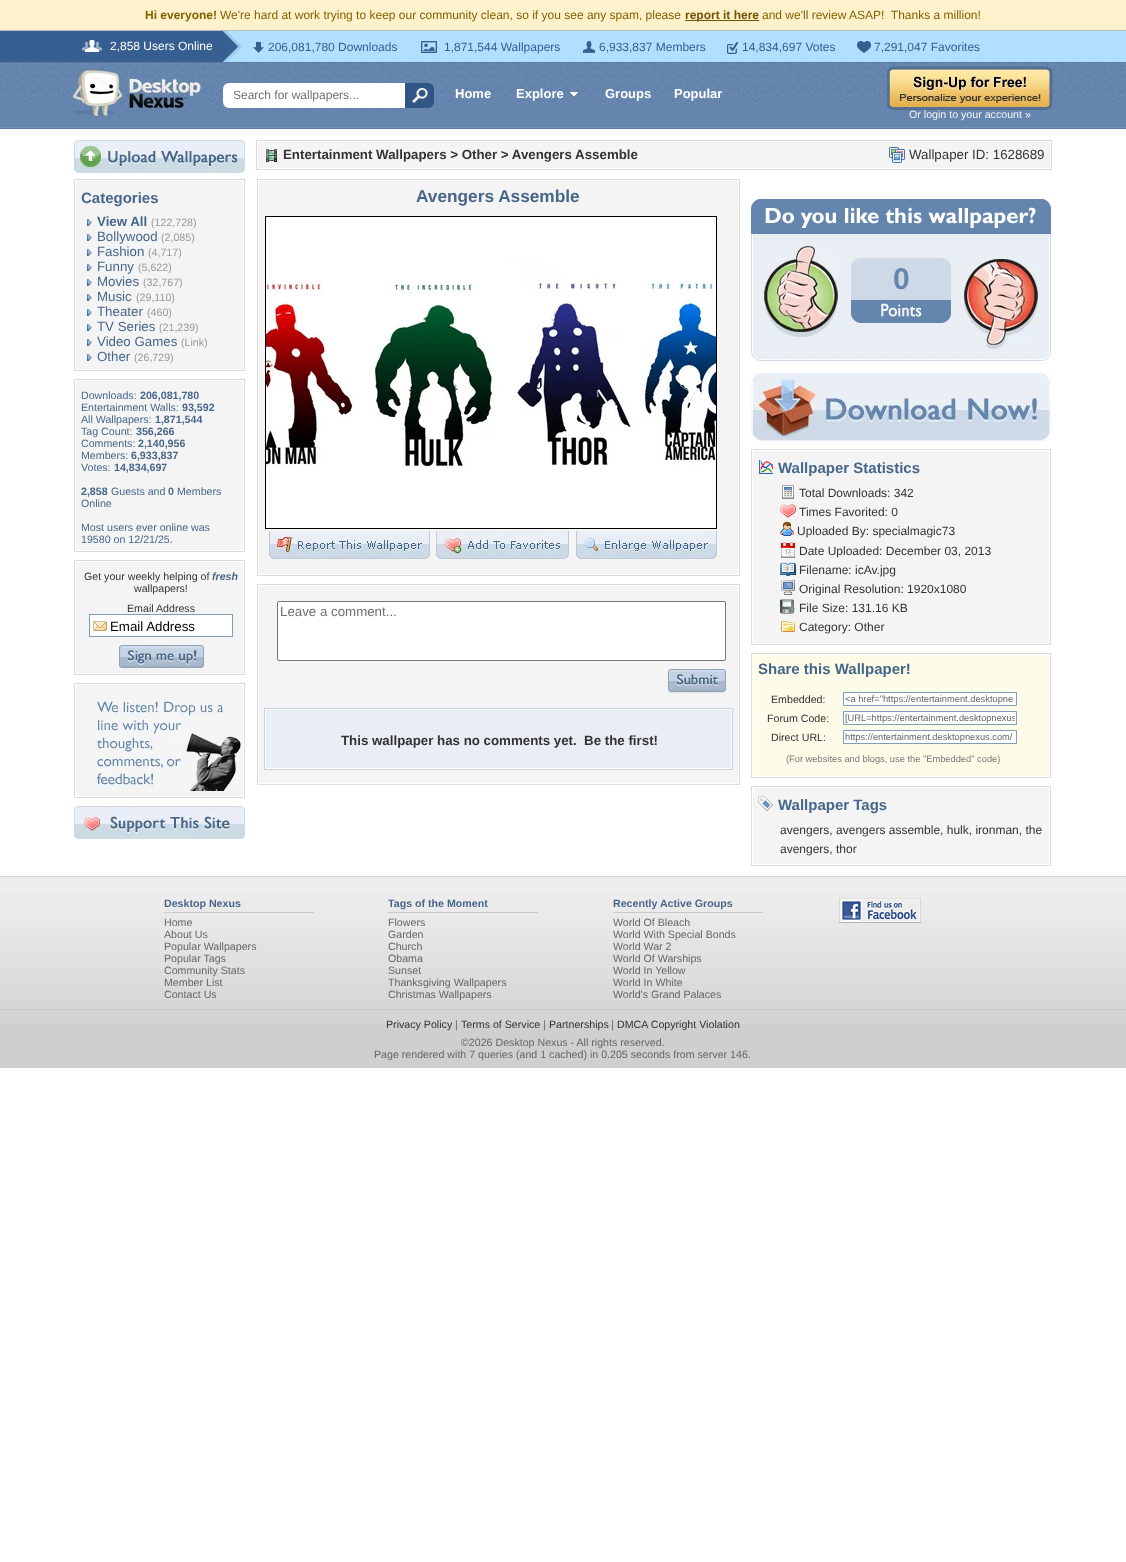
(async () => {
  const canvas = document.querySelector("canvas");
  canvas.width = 1126;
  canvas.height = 1562;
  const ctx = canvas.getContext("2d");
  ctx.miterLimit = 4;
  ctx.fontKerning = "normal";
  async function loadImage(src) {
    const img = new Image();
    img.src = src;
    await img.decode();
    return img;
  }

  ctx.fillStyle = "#ffffff";
  ctx.fillRect(0, 0, 1126, 1562);
  for (const [x, y, w, h, color] of [
    [0, 0, 1126, 30, "#fff1cb"],
    [685, 20, 74, 1, "#705500"],
    [242, 31, 884, 31, "#b1dfff"],
    [0, 30, 1126, 1, "#b6bac0"],
    [0, 31, 223, 31, "#375e90"],
  ]) {
    ctx.fillStyle = color;
    ctx.fillRect(x, y, w, h);
  }
  ctx.drawImage(await loadImage("img/1.png"), 82, 40, 20, 12);
  ctx.drawImage(await loadImage("img/2.png"), 223, 31, 19, 31);
  ctx.drawImage(await loadImage("img/3.png"), 253, 42, 11, 11);
  ctx.drawImage(await loadImage("img/4.png"), 421, 41, 16, 12);
  ctx.drawImage(await loadImage("img/5.png"), 583, 41, 12, 12);
  ctx.drawImage(await loadImage("img/6.png"), 727, 42, 11, 12);
  ctx.drawImage(await loadImage("img/7.png"), 857, 41, 14, 12);
  ctx.drawImage(await loadImage("img/8.png"), 0, 62, 1126, 67);
  ctx.drawImage(await loadImage("img/9.png"), 73, 70, 128, 46);
  ctx.fillStyle = "#ffffff";
  ctx.beginPath();
  ctx.roundRect(223, 83, 198, 25, [6, 0, 0, 6]);
  ctx.fill();
  ctx.fillStyle = "#305686";
  ctx.beginPath();
  ctx.roundRect(405, 83, 29, 25, [0, 6, 6, 0]);
  ctx.fill();
  ctx.drawImage(await loadImage("img/10.png"), 412, 88, 16, 15);
  ctx.drawImage(await loadImage("img/11.png"), 569, 92, 10, 5);
  ctx.drawImage(await loadImage("img/12.png"), 887, 66, 166, 44);
  ctx.drawImage(await loadImage("img/13.png"), 74, 140, 171, 33);
  ctx.strokeStyle = "#dcdcdc";
  ctx.strokeRect(74.5, 179.5, 170, 191);
  ctx.fillStyle = "#f4f4f4";
  ctx.fillRect(76, 181, 167, 188);
  ctx.drawImage(await loadImage("img/14.png"), 87, 219, 5, 7);
  ctx.drawImage(await loadImage("img/14.png"), 87, 234, 5, 7);
  ctx.drawImage(await loadImage("img/14.png"), 87, 249, 5, 7);
  ctx.drawImage(await loadImage("img/14.png"), 87, 264, 5, 7);
  ctx.drawImage(await loadImage("img/14.png"), 87, 279, 5, 7);
  ctx.drawImage(await loadImage("img/14.png"), 87, 294, 5, 7);
  ctx.drawImage(await loadImage("img/14.png"), 87, 309, 5, 7);
  ctx.drawImage(await loadImage("img/14.png"), 87, 324, 5, 7);
  ctx.drawImage(await loadImage("img/14.png"), 87, 339, 5, 7);
  ctx.drawImage(await loadImage("img/14.png"), 87, 354, 5, 7);
  ctx.strokeRect(74.5, 379.5, 170, 172);
  ctx.fillRect(76, 381, 167, 169);
  ctx.strokeRect(74.5, 560.5, 170, 114);
  ctx.fillRect(76, 562, 167, 111);
  ctx.fillStyle = "#ffffff";
  ctx.fillRect(90, 615, 142, 21);
  ctx.drawImage(await loadImage("img/15.png"), 90, 621, 17, 10);
  ctx.strokeStyle = "#7f9db9";
  ctx.strokeRect(89.5, 614.5, 143, 22);
  ctx.drawImage(await loadImage("img/16.png"), 119, 645, 85, 23);
  ctx.strokeStyle = "#dcdcdc";
  ctx.strokeRect(74.5, 683.5, 170, 114);
  ctx.fillStyle = "#f4f4f4";
  ctx.fillRect(76, 685, 167, 111);
  ctx.drawImage(await loadImage("img/17.png"), 94, 700, 147, 91);
  ctx.drawImage(await loadImage("img/18.png"), 74, 806, 171, 33);
  ctx.strokeRect(256.5, 140.5, 795, 29);
  ctx.fillRect(258, 142, 792, 26);
  ctx.drawImage(await loadImage("img/19.png"), 263, 147, 16, 16);
  ctx.drawImage(await loadImage("img/20.png"), 889, 147, 16, 16);
  ctx.strokeRect(257.5, 179.5, 482, 396);
  ctx.fillRect(259, 181, 479, 393);
  ctx.strokeStyle = "#000000";
  ctx.strokeRect(265.5, 216.5, 451, 312);
  ctx.drawImage(await loadImage("img/21.png"), 266, 217, 450, 311);
  ctx.drawImage(await loadImage("img/22.png"), 269, 531, 161, 28);
  ctx.drawImage(await loadImage("img/23.png"), 436, 531, 133, 28);
  ctx.drawImage(await loadImage("img/24.png"), 576, 531, 141, 28);
  ctx.strokeStyle = "#dcdcdc";
  ctx.strokeRect(257.5, 584.5, 482, 200);
  ctx.fillRect(259, 586, 479, 197);
  ctx.fillStyle = "#ffffff";
  ctx.beginPath();
  ctx.roundRect(277.5, 601.5, 448, 59, 1.5);
  ctx.fill();
  ctx.strokeStyle = "#767676";
  ctx.stroke();
  ctx.drawImage(await loadImage("img/25.png"), 668, 669, 58, 24);
  ctx.beginPath();
  ctx.rect(264.5, 708.5, 468, 61);
  ctx.fill();
  ctx.strokeStyle = "#c5d2e2";
  ctx.stroke();
  ctx.fillStyle = "#e9eef4";
  ctx.fillRect(266, 710, 465, 58);
  ctx.drawImage(await loadImage("img/26.png"), 751, 199, 300, 35);
  ctx.drawImage(await loadImage("img/27.png"), 751, 234, 300, 118);
  ctx.drawImage(await loadImage("img/28.png"), 764, 245, 74, 92);
  ctx.fillStyle = "#cdd9e7";
  ctx.fillRect(851, 266, 100, 34);
  ctx.drawImage(await loadImage("img/29.png"), 851, 258, 100, 8);
  ctx.drawImage(await loadImage("img/30.png"), 851, 300, 100, 23);
  ctx.drawImage(await loadImage("img/31.png"), 964, 257, 74, 92);
  ctx.drawImage(await loadImage("img/32.png"), 751, 352, 300, 9);
  ctx.drawImage(await loadImage("img/33.png"), 751, 373, 300, 68);
  ctx.strokeStyle = "#dcdcdc";
  ctx.strokeRect(751.5, 449.5, 299, 195);
  ctx.fillStyle = "#f4f4f4";
  ctx.fillRect(753, 451, 296, 192);
  ctx.drawImage(await loadImage("img/34.png"), 759, 460, 14, 14);
  ctx.drawImage(await loadImage("img/35.png"), 782, 485, 12, 14);
  ctx.drawImage(await loadImage("img/36.png"), 780, 504, 16, 14);
  ctx.drawImage(await loadImage("img/37.png"), 780, 522, 14, 14);
  ctx.drawImage(await loadImage("img/38.png"), 781, 542, 14, 16);
  ctx.drawImage(await loadImage("img/39.png"), 780, 562, 16, 14);
  ctx.drawImage(await loadImage("img/40.png"), 781, 580, 14, 15);
  ctx.drawImage(await loadImage("img/41.png"), 780, 599, 16, 15);
  ctx.drawImage(await loadImage("img/42.png"), 781, 621, 14, 11);
  ctx.strokeRect(751.5, 653.5, 299, 124);
  ctx.fillStyle = "#fdfce8";
  ctx.fillRect(753, 655, 296, 121);
  ctx.fillStyle = "#ffffff";
  ctx.beginPath();
  ctx.rect(843.5, 692.5, 173, 13);
  ctx.fill();
  ctx.strokeStyle = "#7f9db9";
  ctx.stroke();
  ctx.beginPath();
  ctx.rect(843.5, 711.5, 173, 13);
  ctx.fill();
  ctx.stroke();
  ctx.beginPath();
  ctx.rect(843.5, 730.5, 173, 13);
  ctx.fill();
  ctx.stroke();
  ctx.strokeStyle = "#dcdcdc";
  ctx.strokeRect(751.5, 786.5, 299, 79);
  ctx.fillStyle = "#f4f4f4";
  ctx.fillRect(753, 788, 296, 76);
  ctx.drawImage(await loadImage("img/43.png"), 758, 796, 15, 16);
  ctx.fillStyle = "#cfcfcf";
  ctx.fillRect(0, 1024, 1126, 44);
  ctx.drawImage(await loadImage("img/44.png"), 0, 876, 1126, 148);
  for (const [x, y, w, h, color] of [
    [164, 912, 150, 1, "#c9c9c9"],
    [388, 912, 150, 1, "#c9c9c9"],
    [613, 912, 150, 1, "#c9c9c9"],
  ]) {
    ctx.fillStyle = color;
    ctx.fillRect(x, y, w, h);
  }
  ctx.drawImage(await loadImage("img/45.png"), 839, 898, 82, 25);
  ctx.fillRect(0, 1009, 1126, 1);
  ctx.font = "bold 12px Liberation Sans";
  ctx.fillStyle = "#826200";
  ctx.fillText("Hi everyone!", 145, 19);
  ctx.font = "12px Liberation Sans";
  ctx.fillText("We're hard at work trying to keep our community clean, so if you see any spam, please", 220, 19);
  ctx.font = "bold 12px Liberation Sans";
  ctx.fillStyle = "#705500";
  ctx.fillText("report it here", 685, 19);
  ctx.font = "12px Liberation Sans";
  ctx.fillStyle = "#826200";
  ctx.fillText("and we'll review ASAP!  Thanks a million!", 762, 19);
  ctx.fillStyle = "#ffffff";
  ctx.fillText("2,858 Users Online", 110, 50);
  ctx.fillStyle = "#375e90";
  for (const [text, x, y] of [
    ["206,081,780 Downloads", 268, 51],
    ["1,871,544 Wallpapers", 444, 51],
    ["6,933,837 Members", 599, 51],
    ["14,834,697 Votes", 742, 51],
    ["7,291,047 Favorites", 874, 51],
  ]) {
    ctx.fillText(text, x, y);
  }
  ctx.fillStyle = "#707070";
  ctx.fillText("Search for wallpapers...", 233, 99);
  ctx.font = "bold 13px Liberation Sans";
  ctx.fillStyle = "#ffffff";
  for (const [text, x, y] of [
    ["Home", 455, 98],
    ["Explore", 516, 98],
    ["Groups", 605, 98],
    ["Popular", 674, 98],
  ]) {
    ctx.fillText(text, x, y);
  }
  ctx.font = "10.65px Liberation Sans";
  ctx.fillStyle = "#f4f4f4";
  ctx.fillText("Or login to your account »", 909, 118);
  ctx.font = "bold 15px Liberation Sans";
  ctx.fillStyle = "#46678a";
  ctx.fillText("Categories", 81, 203);
  ctx.font = "bold 13.3px Liberation Sans";
  ctx.fillText("View All", 97, 226);
  ctx.font = "10.65px Liberation Sans";
  ctx.fillStyle = "#999999";
  ctx.fillText("(122,728)", 151, 226);
  ctx.font = "13.3px Liberation Sans";
  ctx.fillStyle = "#46678a";
  ctx.fillText("Bollywood", 97, 241);
  ctx.font = "10.65px Liberation Sans";
  ctx.fillStyle = "#999999";
  ctx.fillText("(2,085)", 161, 241);
  ctx.font = "13.3px Liberation Sans";
  ctx.fillStyle = "#46678a";
  ctx.fillText("Fashion", 97, 256);
  ctx.font = "10.65px Liberation Sans";
  ctx.fillStyle = "#999999";
  ctx.fillText("(4,717)", 148, 256);
  ctx.font = "13.3px Liberation Sans";
  ctx.fillStyle = "#46678a";
  ctx.fillText("Funny", 97, 271);
  ctx.font = "10.65px Liberation Sans";
  ctx.fillStyle = "#999999";
  ctx.fillText("(5,622)", 138, 271);
  ctx.font = "13.3px Liberation Sans";
  ctx.fillStyle = "#46678a";
  ctx.fillText("Movies", 97, 286);
  ctx.font = "10.65px Liberation Sans";
  ctx.fillStyle = "#999999";
  ctx.fillText("(32,767)", 143, 286);
  ctx.font = "13.3px Liberation Sans";
  ctx.fillStyle = "#46678a";
  ctx.fillText("Music", 97, 301);
  ctx.font = "10.65px Liberation Sans";
  ctx.fillStyle = "#999999";
  ctx.fillText("(29,110)", 136, 301);
  ctx.font = "13.3px Liberation Sans";
  ctx.fillStyle = "#46678a";
  ctx.fillText("Theater", 97, 316);
  ctx.font = "10.65px Liberation Sans";
  ctx.fillStyle = "#999999";
  ctx.fillText("(460)", 147, 316);
  ctx.font = "13.3px Liberation Sans";
  ctx.fillStyle = "#46678a";
  ctx.fillText("TV Series", 97, 331);
  ctx.font = "10.65px Liberation Sans";
  ctx.fillStyle = "#999999";
  ctx.fillText("(21,239)", 159, 331);
  ctx.font = "13.3px Liberation Sans";
  ctx.fillStyle = "#46678a";
  ctx.fillText("Video Games", 97, 346);
  ctx.font = "10.65px Liberation Sans";
  ctx.fillStyle = "#999999";
  ctx.fillText("(Link)", 181, 346);
  ctx.font = "13.3px Liberation Sans";
  ctx.fillStyle = "#46678a";
  ctx.fillText("Other", 97, 361);
  ctx.font = "10.65px Liberation Sans";
  ctx.fillStyle = "#999999";
  ctx.fillText("(26,729)", 134, 361);
  ctx.fillStyle = "#46678a";
  ctx.fillText("Downloads:", 81, 399);
  ctx.font = "bold 10.65px Liberation Sans";
  ctx.fillText("206,081,780", 140, 399);
  ctx.font = "10.65px Liberation Sans";
  ctx.fillText("Entertainment Walls:", 81, 411);
  ctx.font = "bold 10.65px Liberation Sans";
  ctx.fillText("93,592", 182, 411);
  ctx.font = "10.65px Liberation Sans";
  ctx.fillText("All Wallpapers:", 81, 423);
  ctx.font = "bold 10.65px Liberation Sans";
  ctx.fillText("1,871,544", 155, 423);
  ctx.font = "10.65px Liberation Sans";
  ctx.fillText("Tag Count:", 81, 435);
  ctx.font = "bold 10.65px Liberation Sans";
  ctx.fillText("356,266", 136, 435);
  ctx.font = "10.65px Liberation Sans";
  ctx.fillText("Comments:", 81, 447);
  ctx.font = "bold 10.65px Liberation Sans";
  ctx.fillText("2,140,956", 138, 447);
  ctx.font = "10.65px Liberation Sans";
  ctx.fillText("Members:", 81, 459);
  ctx.font = "bold 10.65px Liberation Sans";
  ctx.fillText("6,933,837", 131, 459);
  ctx.font = "10.65px Liberation Sans";
  ctx.fillText("Votes:", 81, 471);
  ctx.font = "bold 10.65px Liberation Sans";
  ctx.fillText("14,834,697", 114, 471);
  ctx.fillText("2,858", 81, 495);
  ctx.font = "10.65px Liberation Sans";
  ctx.fillText("Guests and", 111, 495);
  ctx.font = "bold 10.65px Liberation Sans";
  ctx.fillText("0", 168, 495);
  ctx.font = "10.65px Liberation Sans";
  for (const [text, x, y] of [
    ["Members", 177, 495],
    ["Online", 81, 507],
    ["Most users ever online was", 81, 531],
    ["19580 on 12/21/25.", 81, 543],
  ]) {
    ctx.fillText(text, x, y);
  }
  ctx.fillStyle = "#333333";
  ctx.fillText("Get your weekly helping of", 84, 580);
  ctx.font = "italic bold 10.65px Liberation Sans";
  ctx.fillStyle = "#46678a";
  ctx.fillText("fresh", 212, 580);
  ctx.font = "10.65px Liberation Sans";
  ctx.fillStyle = "#333333";
  ctx.fillText("wallpapers!", 134, 592);
  ctx.fillText("Email Address", 127, 612);
  ctx.font = "13.3px Liberation Sans";
  ctx.fillStyle = "#000000";
  ctx.fillText("Email Address", 110, 631);
  ctx.font = "bold 13.3px Liberation Sans";
  ctx.fillStyle = "#333333";
  ctx.fillText("Entertainment Wallpapers > Other > Avengers Assemble", 283, 159);
  ctx.font = "13.3px Liberation Sans";
  ctx.fillText("Wallpaper ID: 1628689", 909, 159);
  ctx.font = "bold 17.25px Liberation Sans";
  ctx.fillStyle = "#46678a";
  ctx.fillText("Avengers Assemble", 416, 202);
  ctx.font = "13.3px Liberation Sans";
  ctx.fillStyle = "#707070";
  ctx.fillText("Leave a comment...", 280, 616);
  ctx.font = "bold 13.3px Liberation Sans";
  ctx.fillStyle = "#333333";
  ctx.fillText("This wallpaper has no comments yet.  Be the first!", 341, 745);
  ctx.font = "bold 30px Liberation Sans";
  ctx.fillStyle = "#6485ae";
  ctx.fillText("0", 893, 289);
  ctx.font = "bold 15px Liberation Sans";
  ctx.fillStyle = "#46678a";
  ctx.fillText("Wallpaper Statistics", 778, 473);
  ctx.font = "12px Liberation Sans";
  ctx.fillStyle = "#333333";
  for (const [text, x, y] of [
    ["Total Downloads: 342", 799, 497],
    ["Times Favorited: 0", 799, 516],
    ["Uploaded By: specialmagic73", 797, 535],
    ["Date Uploaded: December 03, 2013", 799, 555],
    ["Filename: icAv.jpg", 799, 574],
    ["Original Resolution: 1920x1080", 799, 593],
    ["File Size: 131.16 KB", 799, 612],
    ["Category: Other", 799, 631],
  ]) {
    ctx.fillText(text, x, y);
  }
  ctx.font = "bold 15px Liberation Sans";
  ctx.fillStyle = "#46678a";
  ctx.fillText("Share this Wallpaper!", 758, 674);
  ctx.font = "10.65px Liberation Sans";
  ctx.fillStyle = "#333333";
  ctx.fillText("Embedded:", 771, 703);
  ctx.font = "9.3px Liberation Sans";
  ctx.fillStyle = "#666666";
  ctx.fillText("<a href=\"https://entertainment.desktopne", 845, 702);
  ctx.font = "10.65px Liberation Sans";
  ctx.fillStyle = "#333333";
  ctx.fillText("Forum Code:", 767, 722);
  ctx.save();
  ctx.beginPath();
  ctx.rect(845, 713, 170, 10);
  ctx.clip();
  ctx.font = "9.3px Liberation Sans";
  ctx.fillStyle = "#666666";
  ctx.fillText("[URL=https://entertainment.desktopnexus", 845, 721);
  ctx.restore();
  ctx.fillText("Direct URL:", 771, 741);
  ctx.font = "9.3px Liberation Sans";
  ctx.fillStyle = "#666666";
  ctx.fillText("https://entertainment.desktopnexus.com/", 845, 740);
  ctx.fillStyle = "#777777";
  ctx.fillText("(For websites and blogs, use the \"Embedded\" code)", 786, 762);
  ctx.font = "bold 15px Liberation Sans";
  ctx.fillStyle = "#46678a";
  ctx.fillText("Wallpaper Tags", 778, 810);
  ctx.font = "12px Liberation Sans";
  ctx.fillStyle = "#333333";
  ctx.fillText("avengers, avengers assemble, hulk, ironman, the", 780, 834);
  ctx.fillText("avengers, thor", 780, 853);
  ctx.font = "bold 10.65px Liberation Sans";
  ctx.fillStyle = "#46678a";
  ctx.fillText("Desktop Nexus", 164, 907);
  ctx.font = "10.65px Liberation Sans";
  ctx.fillStyle = "#666666";
  for (const [text, x, y] of [
    ["Home", 164, 926],
    ["About Us", 164, 938],
    ["Popular Wallpapers", 164, 950],
    ["Popular Tags", 164, 962],
    ["Community Stats", 164, 974],
    ["Member List", 164, 986],
    ["Contact Us", 164, 998],
  ]) {
    ctx.fillText(text, x, y);
  }
  ctx.font = "bold 10.65px Liberation Sans";
  ctx.fillStyle = "#46678a";
  ctx.fillText("Tags of the Moment", 388, 907);
  ctx.font = "10.65px Liberation Sans";
  ctx.fillStyle = "#666666";
  for (const [text, x, y] of [
    ["Flowers", 388, 926],
    ["Garden", 388, 938],
    ["Church", 388, 950],
    ["Obama", 388, 962],
    ["Sunset", 388, 974],
    ["Thanksgiving Wallpapers", 388, 986],
    ["Christmas Wallpapers", 388, 998],
  ]) {
    ctx.fillText(text, x, y);
  }
  ctx.font = "bold 10.65px Liberation Sans";
  ctx.fillStyle = "#46678a";
  ctx.fillText("Recently Active Groups", 613, 907);
  ctx.font = "10.65px Liberation Sans";
  ctx.fillStyle = "#666666";
  for (const [text, x, y] of [
    ["World Of Bleach", 613, 926],
    ["World With Special Bonds", 613, 938],
    ["World War 2", 613, 950],
    ["World Of Warships", 613, 962],
    ["World In Yellow", 613, 974],
    ["World In White", 613, 986],
    ["World's Grand Palaces", 613, 998],
  ]) {
    ctx.fillText(text, x, y);
  }
  ctx.fillStyle = "#333333";
  ctx.fillText("Privacy Policy", 386, 1028);
  ctx.fillStyle = "#666666";
  ctx.fillText("|", 455, 1028);
  ctx.fillStyle = "#333333";
  ctx.fillText("Terms of Service", 461, 1028);
  ctx.fillStyle = "#666666";
  ctx.fillText("|", 543, 1028);
  ctx.fillStyle = "#333333";
  ctx.fillText("Partnerships", 549, 1028);
  ctx.fillStyle = "#666666";
  ctx.fillText("|", 611, 1028);
  ctx.fillStyle = "#333333";
  ctx.fillText("DMCA Copyright Violation", 617, 1028);
  ctx.fillStyle = "#666666";
  ctx.fillText("©2026 Desktop Nexus - All rights reserved.", 461, 1046);
  ctx.fillText("Page rendered with 7 queries (and 1 cached) in 0.205 seconds from server 146.", 374, 1058);
})();
